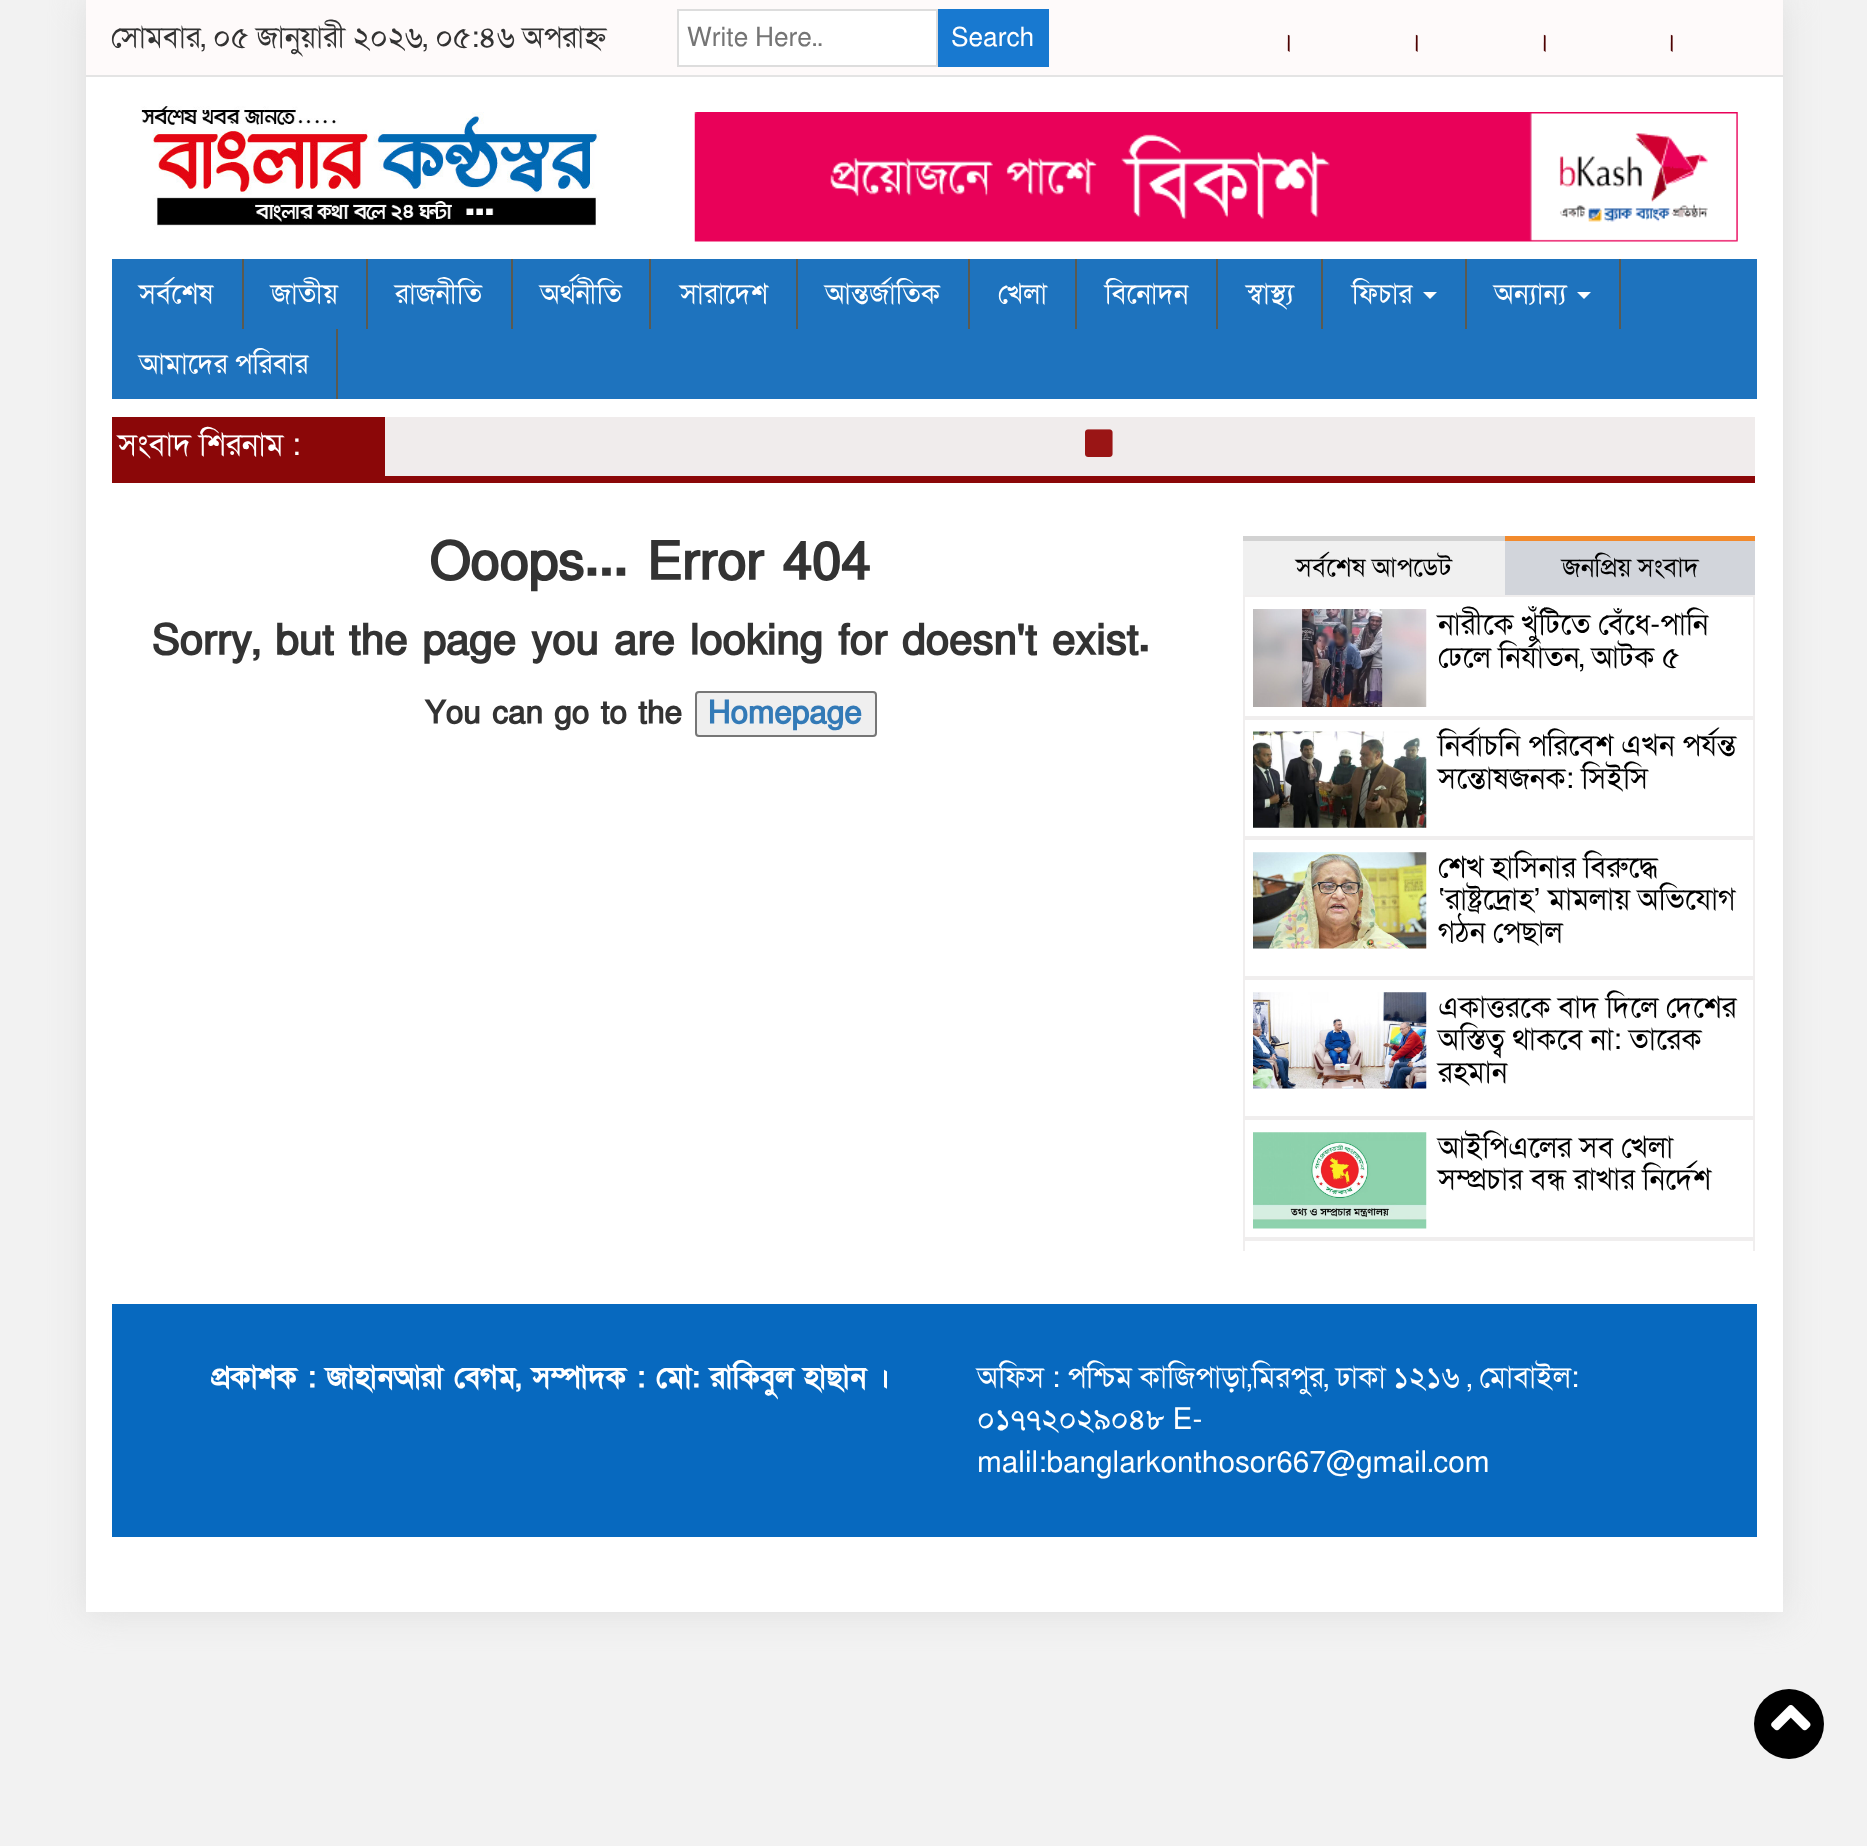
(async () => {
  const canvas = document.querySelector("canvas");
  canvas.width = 1867;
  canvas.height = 1846;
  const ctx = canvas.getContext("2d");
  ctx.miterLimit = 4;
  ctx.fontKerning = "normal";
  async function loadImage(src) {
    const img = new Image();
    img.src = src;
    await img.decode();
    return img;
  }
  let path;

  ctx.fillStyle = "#f2f2f2";
  ctx.fillRect(0, 0, 1867, 1846);
  ctx.fillStyle = "#dddddd";
  ctx.filter = "blur(17.5px)";
  ctx.beginPath();
  ctx.rect(86, 0, 1697, 1612);
  ctx.fill();
  ctx.filter = "none";
  for (const [x, y, w, h, color] of [
    [86, 77, 1697, 1535, "#ffffff"],
    [86, 0, 1697, 75, "#fefafa"],
    [86, 75, 1697, 2, "#e4e4e4"],
  ]) {
    ctx.fillStyle = color;
    ctx.fillRect(x, y, w, h);
  }
  ctx.fillStyle = "#ffffff";
  ctx.beginPath();
  ctx.rect(678, 10, 259, 56);
  ctx.fill();
  ctx.strokeStyle = "#dddddd";
  ctx.lineWidth = 2;
  ctx.stroke();
  ctx.fillStyle = "#1879d0";
  ctx.fillRect(938, 9, 111, 58);
  ctx.drawImage(await loadImage("img/1.png"), 141, 106, 459, 124);
  ctx.drawImage(await loadImage("img/2.png"), 694, 112, 1044, 130);
  for (const [x, y, w, h, color] of [
    [112, 259, 1645, 140, "#1e73be"],
    [242, 259, 2, 70, "#5b5a50"],
    [366, 259, 2, 70, "#5b5a50"],
    [511, 259, 2, 70, "#5b5a50"],
    [649, 259, 2, 70, "#5b5a50"],
    [796, 259, 2, 70, "#5b5a50"],
    [968, 259, 2, 70, "#5b5a50"],
    [1075, 259, 2, 70, "#5b5a50"],
    [1216, 259, 2, 70, "#5b5a50"],
    [1321, 259, 2, 70, "#5b5a50"],
    [1465, 259, 2, 70, "#5b5a50"],
  ]) {
    ctx.fillStyle = color;
    ctx.fillRect(x, y, w, h);
  }
  ctx.fillStyle = "#ffffff";
  path = new Path2D("M1423 292H1437L1430 299Z");
  ctx.fill(path);
  ctx.fillStyle = "#5b5a50";
  ctx.fillRect(1619, 259, 2, 70);
  ctx.fillStyle = "#ffffff";
  path = new Path2D("M1577 292H1591L1584 299Z");
  ctx.fill(path);
  for (const [x, y, w, h, color] of [
    [336, 329, 2, 70, "#5b5a50"],
    [112, 417, 273, 66, "#8b0708"],
    [385, 417, 1370, 59, "#f0ecec"],
    [385, 476, 1370, 7, "#8b0708"],
  ]) {
    ctx.fillStyle = color;
    ctx.fillRect(x, y, w, h);
  }
  ctx.drawImage(await loadImage("img/3.png"), 1085, 429, 28, 28);
  ctx.fillStyle = "#efefef";
  ctx.beginPath();
  ctx.roundRect(696, 692, 180, 44, 3);
  ctx.fill();
  ctx.strokeStyle = "#767676";
  ctx.stroke();
  for (const [x, y, w, h, color] of [
    [1505, 541, 250, 54, "#d2d5db"],
    [1243, 541, 262, 54, "#f0f0f0"],
    [1243, 536, 262, 5, "#d2d2d2"],
    [1505, 536, 250, 5, "#f28a2d"],
  ]) {
    ctx.fillStyle = color;
    ctx.fillRect(x, y, w, h);
  }
  ctx.strokeStyle = "#f0eeee";
  ctx.strokeRect(1244, 596, 510, 121);
  ctx.drawImage(await loadImage("img/4.png"), 1253, 609, 174, 98);
  ctx.strokeRect(1244, 719, 510, 118);
  ctx.drawImage(await loadImage("img/5.png"), 1253, 731, 174, 97);
  ctx.strokeRect(1244, 839, 510, 138);
  ctx.drawImage(await loadImage("img/6.png"), 1253, 852, 174, 97);
  ctx.strokeRect(1244, 979, 510, 138);
  ctx.drawImage(await loadImage("img/7.png"), 1253, 992, 174, 97);
  ctx.strokeRect(1244, 1119, 510, 119);
  ctx.drawImage(await loadImage("img/8.png"), 1253, 1132, 174, 97);
  ctx.fillStyle = "#0769bf";
  ctx.fillRect(112, 1304, 1645, 233);
  ctx.save();
  ctx.beginPath();
  ctx.rect(1243, 595, 512, 656);
  ctx.clip();
  ctx.strokeRect(1244, 1240, 510, 121);
  ctx.restore();
  ctx.fillStyle = "#000000";
  ctx.beginPath();
  ctx.arc(1789, 1724, 35, 0, Math.PI * 2);
  ctx.fill();
  ctx.drawImage(await loadImage("img/9.png"), 1771, 1705, 40, 26);
  ctx.font = "29.75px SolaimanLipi";
  ctx.fillStyle = "#333333";
  ctx.fillText("সোমবার, ০৫ জানুয়ারী ২০২৬, ০৫:৪৬ অপরাহ্ন", 111, 47);
  ctx.font = "26.25px SolaimanLipi";
  ctx.fillStyle = "#757575";
  ctx.fillText("Write Here..", 687, 46);
  ctx.fillStyle = "#ffffff";
  ctx.fillText("Search", 951, 46);
  ctx.font = "29.75px SolaimanLipi";
  ctx.fillStyle = "#4d0202";
  for (const [text, x, y] of [
    ["।", 1280, 51],
    ["।", 1408, 51],
    ["।", 1536, 51],
    ["।", 1663, 51],
  ]) {
    ctx.fillText(text, x, y);
  }
  ctx.font = "28px SolaimanLipi";
  ctx.fillStyle = "#ffffff";
  for (const [text, x, y] of [
    ["সর্বশেষ", 139, 303],
    ["জাতীয়", 271, 303],
    ["রাজনীতি", 395, 303],
    ["অর্থনীতি", 540, 303],
    ["সারাদেশ", 680, 303],
    ["আন্তর্জাতিক", 825, 303],
    ["খেলা", 998, 303],
    ["বিনোদন", 1105, 303],
    ["স্বাস্থ্য", 1246, 303],
    ["ফিচার", 1352, 303],
    ["অন্যান্য", 1494, 303],
    ["আমাদের পরিবার", 139, 373],
  ]) {
    ctx.fillText(text, x, y);
  }
  ctx.font = "31.5px SolaimanLipi";
  ctx.fillText("সংবাদ শিরনাম :", 118, 455);
  ctx.font = "bold 52.5px SolaimanLipi";
  ctx.fillStyle = "#333333";
  ctx.fillText("Ooops... Error 404", 430, 579);
  ctx.font = "bold 42px SolaimanLipi";
  ctx.fillText("Sorry, but the page you are looking for doesn't exist.", 152, 654);
  ctx.font = "bold 31.5px SolaimanLipi";
  ctx.fillText("You can go to the", 425, 723);
  ctx.fillStyle = "#337ab7";
  ctx.fillText("Homepage", 708, 723);
  ctx.font = "26.25px SolaimanLipi";
  ctx.fillStyle = "#000000";
  ctx.fillText("সর্বশেষ আপডেট", 1296, 576);
  ctx.fillText("জনপ্রিয় সংবাদ", 1562, 576);
  ctx.font = "29.75px SolaimanLipi";
  for (const [text, x, y] of [
    ["নারীকে খুঁটিতে বেঁধে-পানি", 1438, 634],
    ["ঢেলে নির্যাতন, আটক ৫", 1438, 667],
    ["নির্বাচনি পরিবেশ এখন পর্যন্ত", 1438, 755],
    ["সন্তোষজনক: সিইসি", 1438, 788],
    ["শেখ হাসিনার বিরুদ্ধে", 1438, 877],
    ["‘রাষ্ট্রদ্রোহ’ মামলায় অভিযোগ", 1438, 909],
    ["গঠন পেছাল", 1438, 942],
    ["একাত্তরকে বাদ দিলে দেশের", 1438, 1017],
    ["অস্তিত্ব থাকবে না: তারেক", 1438, 1049],
    ["রহমান", 1438, 1082],
    ["আইপিএলের সব খেলা", 1438, 1157],
    ["সম্প্রচার বন্ধ রাখার নির্দেশ", 1438, 1189],
  ]) {
    ctx.fillText(text, x, y);
  }
  ctx.font = "bold 29.75px SolaimanLipi";
  ctx.fillStyle = "#ffffff";
  ctx.fillText("প্রকাশক : জাহানআরা বেগম, সম্পাদক : মো: রাকিবুল হাছান ।", 211, 1387);
  ctx.font = "29.75px SolaimanLipi";
  for (const [text, x, y] of [
    ["অফিস : পশ্চিম কাজিপাড়া,মিরপুর, ঢাকা ১২১৬ , মোবাইল:", 977, 1387],
    ["০১৭৭২০২৯০৪৮ E-", 977, 1429],
    ["malil:banglarkonthosor667@gmail.com", 977, 1472],
  ]) {
    ctx.fillText(text, x, y);
  }
})();
